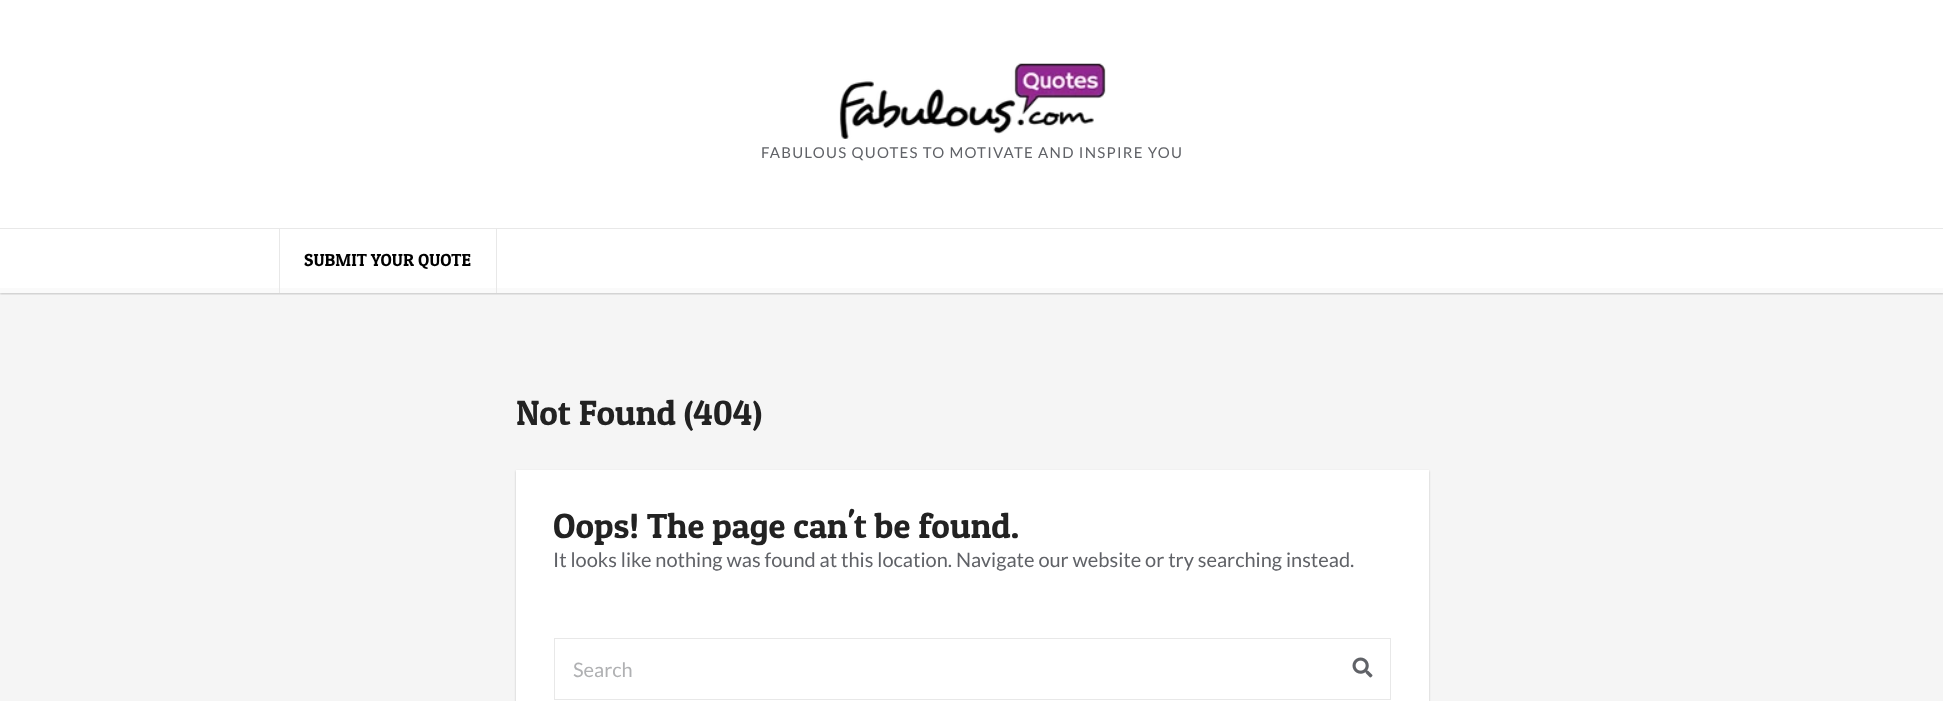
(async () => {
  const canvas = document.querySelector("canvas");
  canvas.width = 1943;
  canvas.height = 701;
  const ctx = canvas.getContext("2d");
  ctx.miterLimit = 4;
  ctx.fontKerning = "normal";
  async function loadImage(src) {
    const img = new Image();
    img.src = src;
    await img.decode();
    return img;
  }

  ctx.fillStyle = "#f5f5f5";
  ctx.fillRect(0, 0, 1943, 701);
  ctx.fillStyle = "#ffffff";
  ctx.fillRect(0, 0, 1943, 288);
  ctx.drawImage(await loadImage("img/1.png"), 839, 63, 267, 76);
  ctx.save();
  ctx.beginPath();
  ctx.rect(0, 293, 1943, 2);
  ctx.clip();
  ctx.fillStyle = "rgba(0, 0, 0, 0.2)";
  ctx.filter = "blur(1px)";
  ctx.beginPath();
  ctx.rect(0, 229, 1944, 65);
  ctx.fill();
  ctx.filter = "none";
  ctx.restore();
  for (const [x, y, w, h, color] of [
    [0, 228, 1943, 1, "#e8e8e8"],
    [0, 288, 1943, 5, "#fafafa"],
    [496, 229, 1, 64, "#e8e8e8"],
    [279, 229, 1, 64, "#e8e8e8"],
  ]) {
    ctx.fillStyle = color;
    ctx.fillRect(x, y, w, h);
  }
  ctx.fillStyle = "rgba(0, 0, 0, 0.2)";
  ctx.filter = "blur(1px)";
  ctx.beginPath();
  ctx.rect(516, 471, 913, 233);
  ctx.fill();
  ctx.filter = "none";
  ctx.fillStyle = "#ffffff";
  ctx.fillRect(516, 470, 913, 231);
  ctx.strokeStyle = "#e8e8e8";
  ctx.strokeRect(554.5, 638.5, 836, 61);
  ctx.drawImage(await loadImage("img/2.png"), 1352, 657, 21, 21);
  ctx.letterSpacing = "1.25px";
  ctx.font = "15px Lato";
  ctx.fillStyle = "#606267";
  ctx.fillText("FABULOUS QUOTES TO MOTIVATE AND INSPIRE YOU", 761, 158);
  ctx.letterSpacing = "0px";
  ctx.font = "17.5px Patua One";
  ctx.fillStyle = "#000000";
  ctx.fillText("SUBMIT YOUR QUOTE", 304, 266);
  ctx.font = "35px Patua One";
  ctx.fillStyle = "#222222";
  ctx.fillText("Not Found (404)", 516, 425);
  ctx.fillText("Oops! The page can't be found.", 553, 538);
  ctx.font = "20px Lato";
  ctx.fillStyle = "#606267";
  ctx.fillText("It looks like nothing was found at this location. Navigate our website or try searching instead.", 553, 567);
  ctx.fillStyle = "#b0b1b3";
  ctx.fillText("Search", 573, 677);
})();
